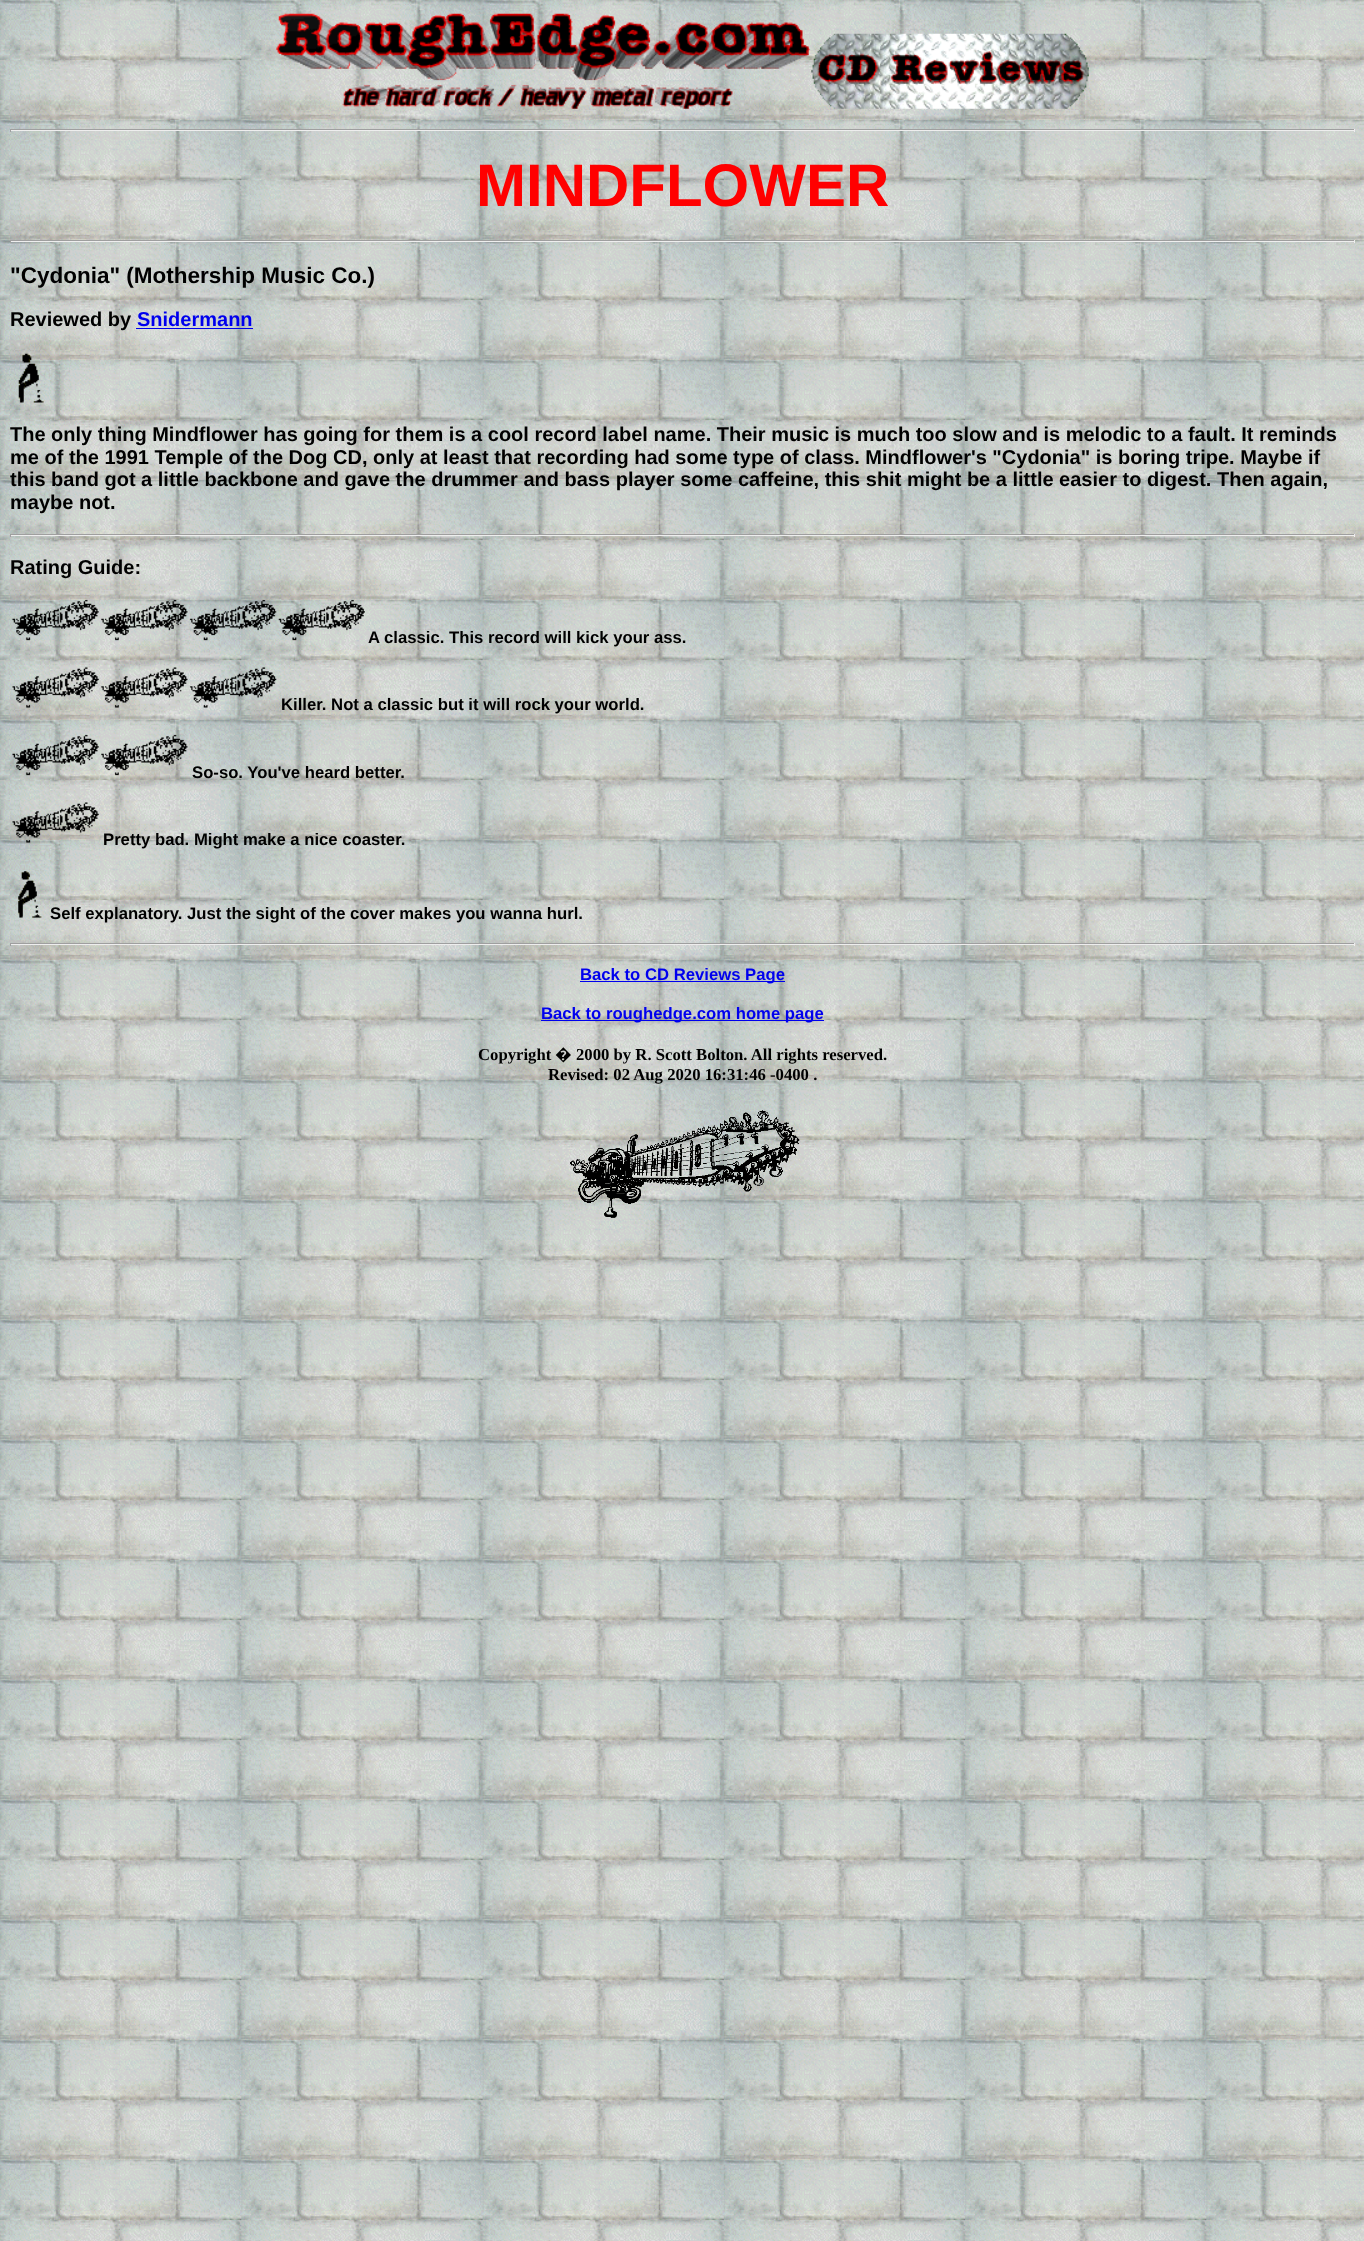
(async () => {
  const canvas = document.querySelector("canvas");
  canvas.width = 1364;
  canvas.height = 2241;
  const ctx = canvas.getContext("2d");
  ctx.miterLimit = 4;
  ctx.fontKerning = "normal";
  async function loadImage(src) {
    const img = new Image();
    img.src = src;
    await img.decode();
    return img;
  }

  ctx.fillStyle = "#ffffff";
  ctx.fillRect(0, 0, 1364, 2241);
  ctx.drawImage(await loadImage("img/1.png"), 0, 0, 1364, 2241);
  ctx.drawImage(await loadImage("img/2.png"), 276, 13, 534, 96);
  ctx.drawImage(await loadImage("img/3.png"), 811, 33, 278, 76);
  for (const [x, y, w, h, color] of [
    [10, 129, 1345, 1, "#9f9f9f"],
    [1354, 129, 1, 3, "#eeeeee"],
    [10, 130, 1345, 1, "#eeeeee"],
    [10, 129, 1, 3, "#9f9f9f"],
    [10, 240, 1345, 1, "#9f9f9f"],
    [1354, 240, 1, 3, "#eeeeee"],
    [10, 241, 1345, 1, "#eeeeee"],
    [10, 240, 1, 3, "#9f9f9f"],
    [136, 328, 117, 1, "#0000ee"],
  ]) {
    ctx.fillStyle = color;
    ctx.fillRect(x, y, w, h);
  }
  ctx.drawImage(await loadImage("img/4.png"), 18, 353, 26, 50);
  for (const [x, y, w, h, color] of [
    [10, 534, 1345, 1, "#9f9f9f"],
    [1354, 534, 1, 3, "#eeeeee"],
    [10, 535, 1345, 1, "#eeeeee"],
    [10, 534, 1, 3, "#9f9f9f"],
  ]) {
    ctx.fillStyle = color;
    ctx.fillRect(x, y, w, h);
  }
  ctx.drawImage(await loadImage("img/5.png"), 12, 599, 87, 42);
  ctx.drawImage(await loadImage("img/6.png"), 101, 599, 87, 42);
  ctx.drawImage(await loadImage("img/7.png"), 189, 599, 88, 42);
  ctx.drawImage(await loadImage("img/8.png"), 278, 599, 87, 42);
  ctx.drawImage(await loadImage("img/9.png"), 12, 667, 87, 41);
  ctx.drawImage(await loadImage("img/10.png"), 101, 667, 87, 41);
  ctx.drawImage(await loadImage("img/11.png"), 189, 667, 88, 41);
  ctx.drawImage(await loadImage("img/12.png"), 12, 734, 87, 42);
  ctx.drawImage(await loadImage("img/13.png"), 101, 734, 87, 42);
  ctx.drawImage(await loadImage("img/14.png"), 12, 802, 87, 41);
  ctx.drawImage(await loadImage("img/15.png"), 18, 871, 24, 47);
  for (const [x, y, w, h, color] of [
    [10, 943, 1345, 1, "#9f9f9f"],
    [1354, 943, 1, 3, "#eeeeee"],
    [10, 944, 1345, 1, "#eeeeee"],
    [10, 943, 1, 3, "#9f9f9f"],
    [580, 981, 205, 1, "#0000ee"],
    [541, 1020, 283, 1, "#0000ee"],
  ]) {
    ctx.fillStyle = color;
    ctx.fillRect(x, y, w, h);
  }
  ctx.drawImage(await loadImage("img/16.png"), 570, 1110, 230, 108);
  ctx.font = "bold 60px Liberation Sans";
  ctx.fillStyle = "#ff0000";
  ctx.fillText("MINDFLOWER", 476, 206);
  ctx.font = "bold 22.5px Liberation Sans";
  ctx.fillStyle = "#000000";
  ctx.fillText("\"Cydonia\" (Mothership Music Co.)", 10, 283);
  ctx.font = "bold 20px Liberation Sans";
  ctx.fillText("Reviewed by", 10, 326);
  ctx.fillStyle = "#0000ee";
  ctx.fillText("Snidermann", 137, 326);
  ctx.fillStyle = "#000000";
  for (const [text, x, y] of [
    ["The only thing Mindflower has going for them is a cool record label name. Their music is much too slow and is melodic to a fault. It reminds", 10, 441],
    ["me of the 1991 Temple of the Dog CD, only at least that recording had some type of class. Mindflower's \"Cydonia\" is boring tripe. Maybe if", 10, 464],
    ["this band got a little backbone and gave the drummer and bass player some caffeine, this shit might be a little easier to digest. Then again,", 10, 486],
    ["maybe not.", 10, 509],
    ["Rating Guide:", 10, 574],
  ]) {
    ctx.fillText(text, x, y);
  }
  ctx.font = "bold 16.7px Liberation Sans";
  for (const [text, x, y] of [
    ["A classic. This record will kick your ass.", 368, 643],
    ["Killer. Not a classic but it will rock your world.", 281, 710],
    ["So-so. You've heard better.", 192, 778],
    ["Pretty bad. Might make a nice coaster.", 103, 845],
    ["Self explanatory. Just the sight of the cover makes you wanna hurl.", 50, 919],
  ]) {
    ctx.fillText(text, x, y);
  }
  ctx.fillStyle = "#0000ee";
  ctx.fillText("Back to CD Reviews Page", 580, 980);
  ctx.fillText("Back to roughedge.com home page", 541, 1019);
  ctx.font = "bold 16.7px Liberation Serif";
  ctx.fillStyle = "#000000";
  ctx.fillText("Copyright", 478, 1060);
  ctx.font = "bold 16.7px Noto Sans";
  ctx.fillText("�", 555, 1060);
  ctx.font = "bold 16.7px Liberation Serif";
  ctx.fillText("2000 by R. Scott Bolton. All rights reserved.", 576, 1060);
  ctx.fillText("Revised: 02 Aug 2020 16:31:46 -0400 .", 548, 1080);
})();
